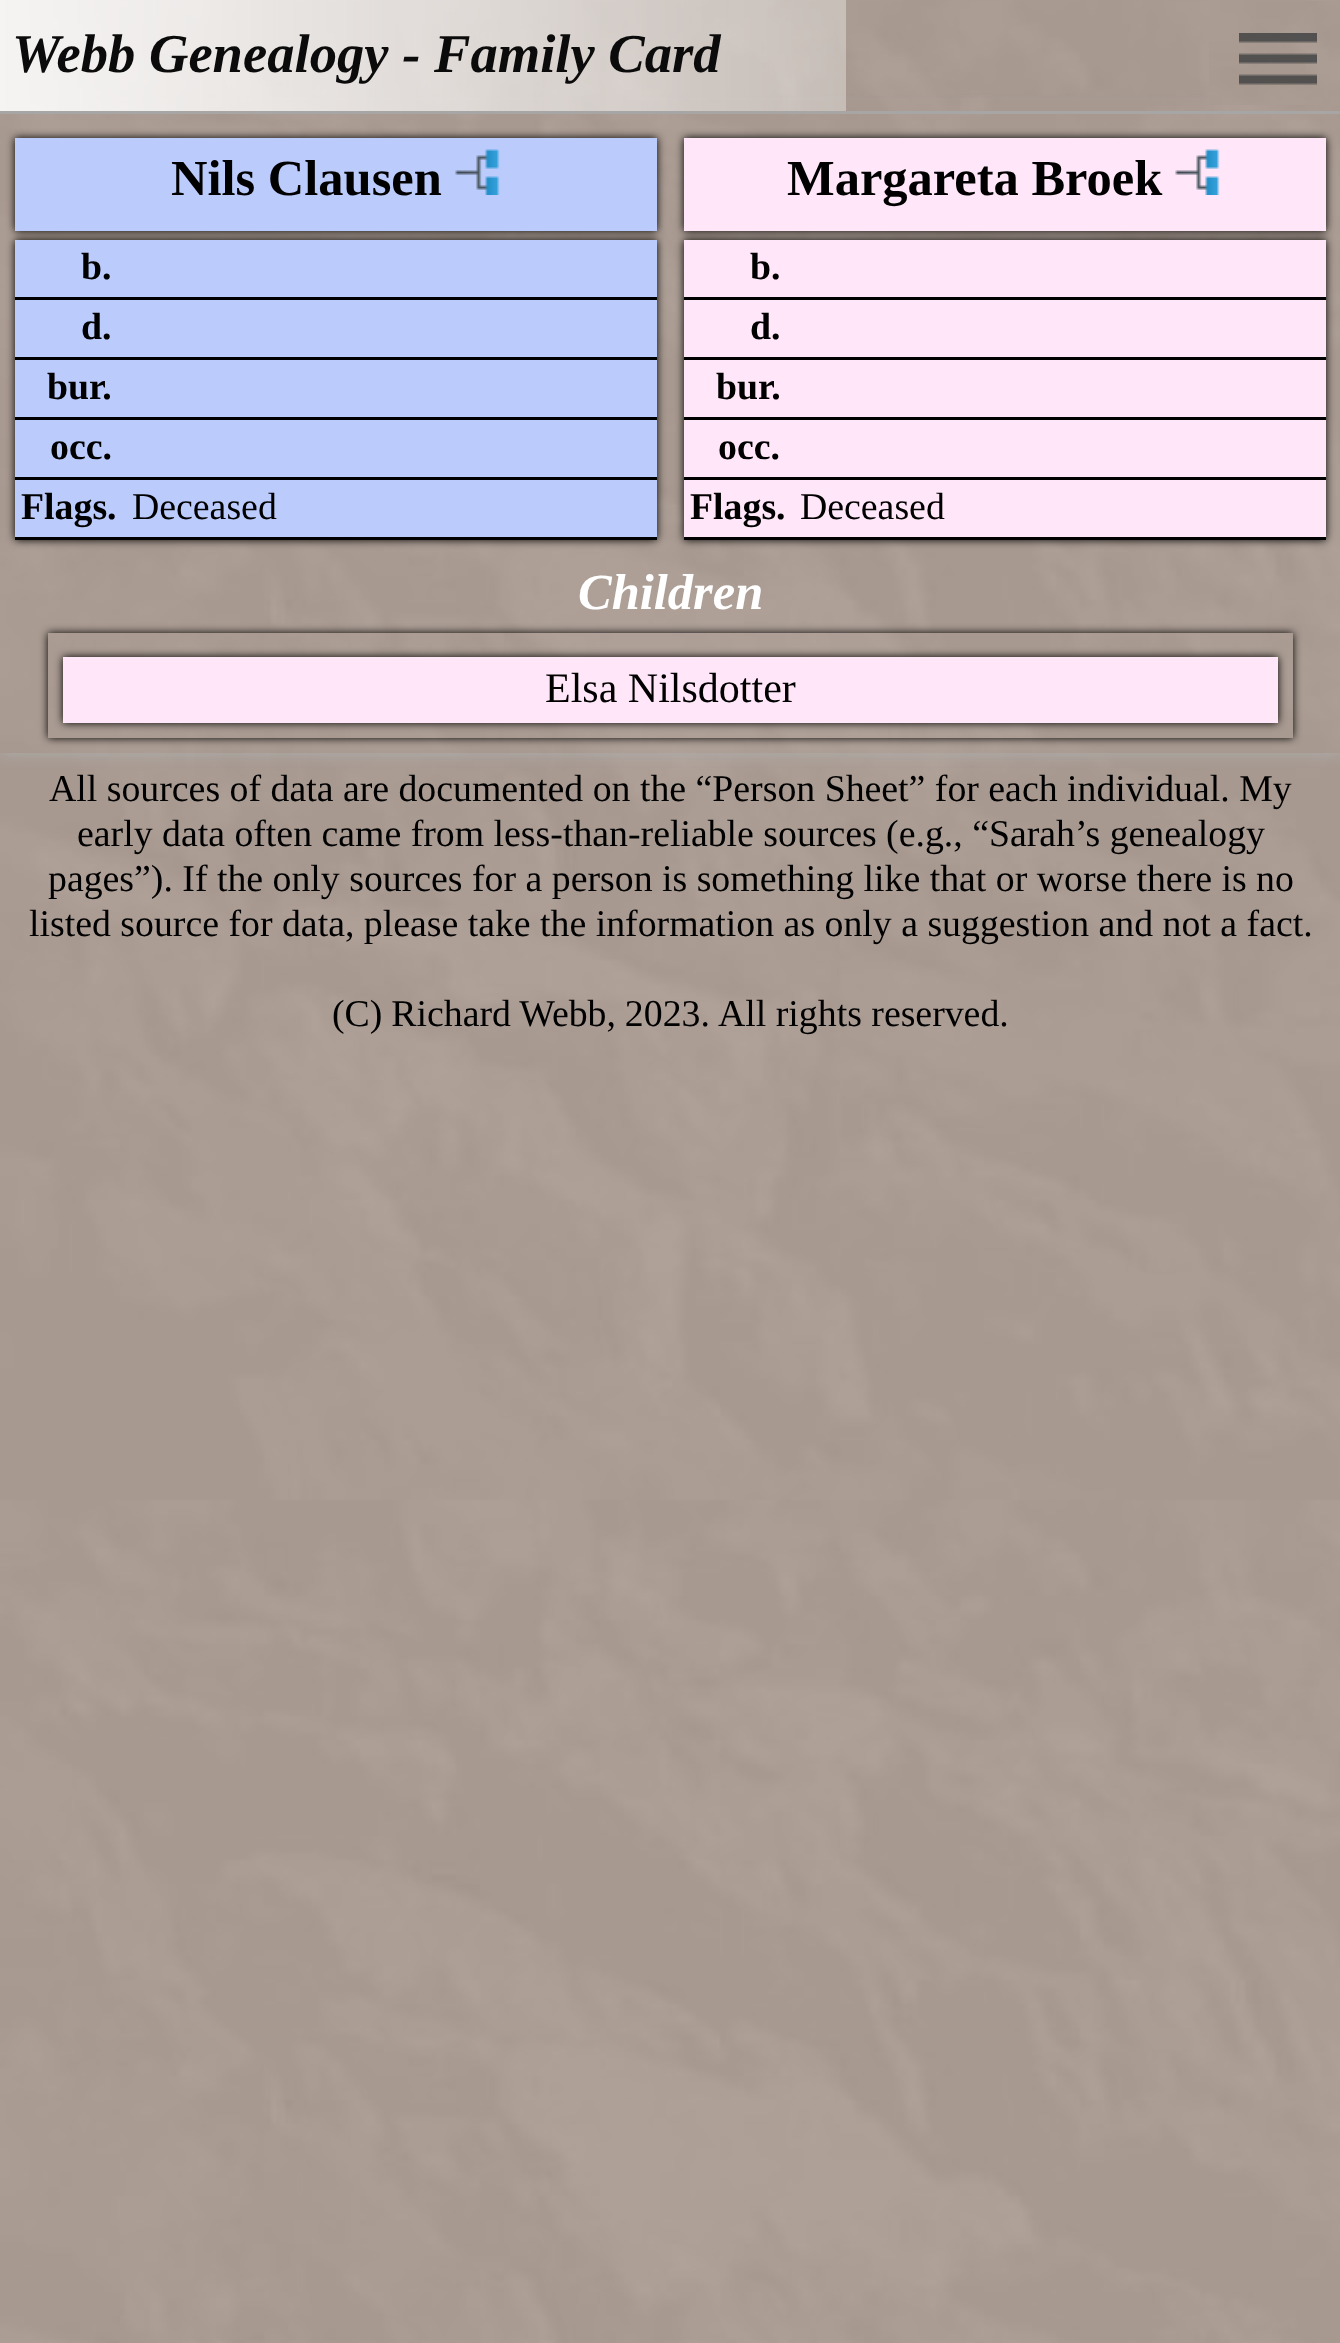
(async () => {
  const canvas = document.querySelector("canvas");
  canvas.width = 1340;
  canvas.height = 2343;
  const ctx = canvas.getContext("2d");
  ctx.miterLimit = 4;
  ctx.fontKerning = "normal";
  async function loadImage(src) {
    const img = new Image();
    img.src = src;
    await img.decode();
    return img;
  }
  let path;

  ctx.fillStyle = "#ffffff";
  ctx.fillRect(0, 0, 1340, 2343);
  ctx.drawImage(await loadImage("img/1.png"), 0, 0, 1340, 2343);
  ctx.save();
  path = new Path2D("M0 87H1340V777H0ZM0 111H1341V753H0Z");
  ctx.clip(path, "evenodd");
  ctx.fillStyle = "#aeaeae";
  ctx.filter = "blur(7.5px)";
  ctx.beginPath();
  ctx.rect(0, 111, 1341, 642);
  ctx.fill();
  ctx.filter = "none";
  ctx.restore();
  ctx.drawImage(await loadImage("img/2.png"), 0, 100, 1340, 11);
  ctx.fillStyle = "rgba(167, 167, 167, 0.95)";
  ctx.fillRect(0, 111, 1340, 3);
  ctx.drawImage(await loadImage("img/3.png"), 0, 0, 846, 111);
  ctx.drawImage(await loadImage("img/4.png"), 1209, 1, 131, 104);
  ctx.drawImage(await loadImage("img/5.png"), 1239, 33, 78, 52);
  ctx.fillStyle = "#000000";
  ctx.filter = "blur(4.5px)";
  ctx.beginPath();
  ctx.rect(15, 138, 642, 93);
  ctx.fill();
  ctx.filter = "none";
  ctx.fillStyle = "#bbccfc";
  ctx.fillRect(15, 138, 642, 93);
  ctx.drawImage(await loadImage("img/6.png"), 455, 149, 45, 46);
  ctx.fillStyle = "#000000";
  ctx.filter = "blur(4.5px)";
  ctx.beginPath();
  ctx.rect(684, 138, 642, 93);
  ctx.fill();
  ctx.filter = "none";
  ctx.fillStyle = "#ffe6f8";
  ctx.fillRect(684, 138, 642, 93);
  ctx.drawImage(await loadImage("img/7.png"), 1175, 149, 45, 46);
  ctx.fillStyle = "#000000";
  ctx.filter = "blur(4.5px)";
  ctx.beginPath();
  ctx.rect(15, 240, 642, 300);
  ctx.fill();
  ctx.filter = "none";
  for (const [x, y, w, h, color] of [
    [15, 240, 642, 297, "#bbccfc"],
    [15, 297, 642, 3, "#000000"],
    [15, 357, 642, 3, "#000000"],
    [15, 417, 642, 3, "#000000"],
    [15, 477, 642, 3, "#000000"],
    [15, 537, 642, 3, "#000000"],
  ]) {
    ctx.fillStyle = color;
    ctx.fillRect(x, y, w, h);
  }
  ctx.filter = "blur(4.5px)";
  ctx.beginPath();
  ctx.rect(684, 240, 642, 300);
  ctx.fill();
  ctx.filter = "none";
  for (const [x, y, w, h, color] of [
    [684, 240, 642, 297, "#ffe6f8"],
    [684, 297, 642, 3, "#000000"],
    [684, 357, 642, 3, "#000000"],
    [684, 417, 642, 3, "#000000"],
    [684, 477, 642, 3, "#000000"],
    [684, 537, 642, 3, "#000000"],
  ]) {
    ctx.fillStyle = color;
    ctx.fillRect(x, y, w, h);
  }
  ctx.save();
  path = new Path2D("M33 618H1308V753H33ZM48 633H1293V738H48Z");
  ctx.clip(path, "evenodd");
  ctx.filter = "blur(4.5px)";
  ctx.beginPath();
  ctx.rect(48, 633, 1245, 105);
  ctx.fill();
  ctx.filter = "none";
  ctx.restore();
  ctx.filter = "blur(4.5px)";
  ctx.beginPath();
  ctx.rect(63, 657, 1215, 66);
  ctx.fill();
  ctx.filter = "none";
  ctx.fillStyle = "#ffe6f8";
  ctx.fillRect(63, 657, 1215, 66);
  ctx.font = "italic bold 54.6px Liberation Serif";
  ctx.fillStyle = "#0b0b0b";
  ctx.fillText("Webb Genealogy - Family Card", 12, 72);
  ctx.font = "bold 50.5px Liberation Serif";
  ctx.fillStyle = "#000000";
  ctx.fillText("Nils Clausen", 171, 195);
  ctx.fillText("Margareta Broek", 787, 195);
  ctx.font = "bold 37.8px Liberation Serif";
  for (const [text, x, y] of [
    ["b.", 81, 279],
    ["d.", 81, 339],
    ["bur.", 47, 399],
    ["occ.", 50, 459],
    ["Flags.", 21, 519],
  ]) {
    ctx.fillText(text, x, y);
  }
  ctx.font = "37.8px Liberation Serif";
  ctx.fillText("Deceased", 132, 519);
  ctx.font = "bold 37.8px Liberation Serif";
  for (const [text, x, y] of [
    ["b.", 750, 279],
    ["d.", 750, 339],
    ["bur.", 716, 399],
    ["occ.", 718, 459],
    ["Flags.", 690, 519],
  ]) {
    ctx.fillText(text, x, y);
  }
  ctx.font = "37.8px Liberation Serif";
  ctx.fillText("Deceased", 800, 519);
  ctx.font = "italic bold 50.5px Liberation Serif";
  ctx.fillStyle = "#ffffff";
  ctx.fillText("Children", 578, 609);
  ctx.font = "42px Liberation Serif";
  ctx.fillStyle = "#000000";
  ctx.fillText("Elsa Nilsdotter", 545, 702);
  ctx.font = "37.8px Liberation Serif";
  for (const [text, x, y] of [
    ["All sources of data are documented on the “Person Sheet” for each individual. My", 49, 801],
    ["early data often came from less-than-reliable sources (e.g., “Sarah’s genealogy", 77, 846],
    ["pages”). If the only sources for a person is something like that or worse there is no", 48, 891],
    ["listed source for data, please take the information as only a suggestion and not a fact.", 29, 936],
  ]) {
    ctx.fillText(text, x, y);
  }
  ctx.wordSpacing = "-0.5px";
  ctx.fillText("(C) Richard Webb, 2023.", 332, 1026);
  ctx.wordSpacing = "0px";
  ctx.fillText("All rights reserved.", 718, 1026);
})();
